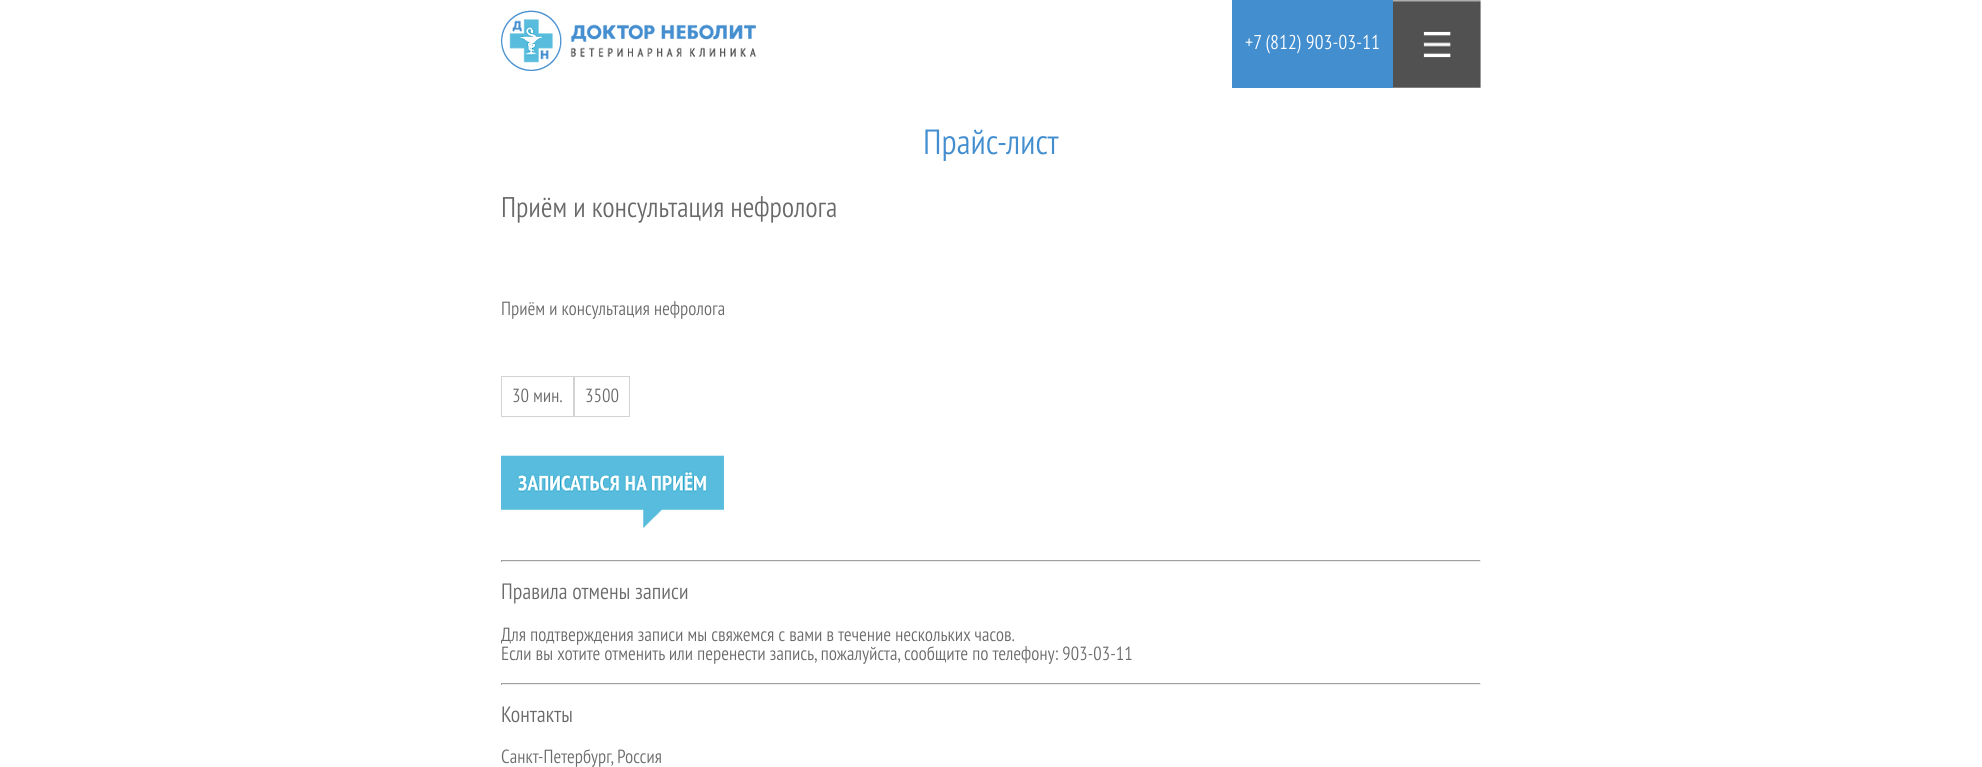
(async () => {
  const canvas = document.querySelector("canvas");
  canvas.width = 1982;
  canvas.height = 767;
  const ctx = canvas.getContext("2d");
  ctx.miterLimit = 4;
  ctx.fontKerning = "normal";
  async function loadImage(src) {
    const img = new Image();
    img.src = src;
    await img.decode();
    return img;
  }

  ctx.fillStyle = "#ffffff";
  ctx.fillRect(0, 0, 1982, 767);
  ctx.drawImage(await loadImage("img/1.png"), 501, 10, 255, 61);
  ctx.fillStyle = "#438ecf";
  ctx.fillRect(1232, 0, 161, 88);
  ctx.drawImage(await loadImage("img/2.png"), 1245, 34, 134, 20);
  ctx.drawImage(await loadImage("img/3.png"), 1393, 0, 88, 88);
  ctx.drawImage(await loadImage("img/4.png"), 925, 129, 134, 32);
  ctx.drawImage(await loadImage("img/5.png"), 502, 196, 334, 27);
  ctx.drawImage(await loadImage("img/6.png"), 502, 301, 223, 18);
  ctx.strokeStyle = "#d3d3d3";
  ctx.strokeRect(501.5, 376.5, 72, 40);
  ctx.drawImage(await loadImage("img/7.png"), 513, 388, 49, 15);
  ctx.strokeRect(574.5, 376.5, 55, 40);
  ctx.drawImage(await loadImage("img/8.png"), 586, 388, 33, 15);
  ctx.drawImage(await loadImage("img/9.png"), 501, 455, 223, 73);
  for (const [x, y, w, h, color] of [
    [501, 560, 980, 1, "#9f9f9f"],
    [1480, 560, 1, 2, "#eeeeee"],
    [501, 561, 980, 1, "#eeeeee"],
    [501, 560, 1, 2, "#9f9f9f"],
  ]) {
    ctx.fillStyle = color;
    ctx.fillRect(x, y, w, h);
  }
  ctx.drawImage(await loadImage("img/10.png"), 502, 583, 186, 21);
  ctx.drawImage(await loadImage("img/11.png"), 501, 627, 513, 18);
  ctx.drawImage(await loadImage("img/12.png"), 502, 646, 630, 18);
  for (const [x, y, w, h, color] of [
    [501, 683, 980, 1, "#9f9f9f"],
    [1480, 683, 1, 2, "#eeeeee"],
    [501, 684, 980, 1, "#eeeeee"],
    [501, 683, 1, 2, "#9f9f9f"],
  ]) {
    ctx.fillStyle = color;
    ctx.fillRect(x, y, w, h);
  }
  ctx.drawImage(await loadImage("img/13.png"), 502, 706, 70, 17);
  ctx.drawImage(await loadImage("img/14.png"), 501, 749, 160, 18);
})();
